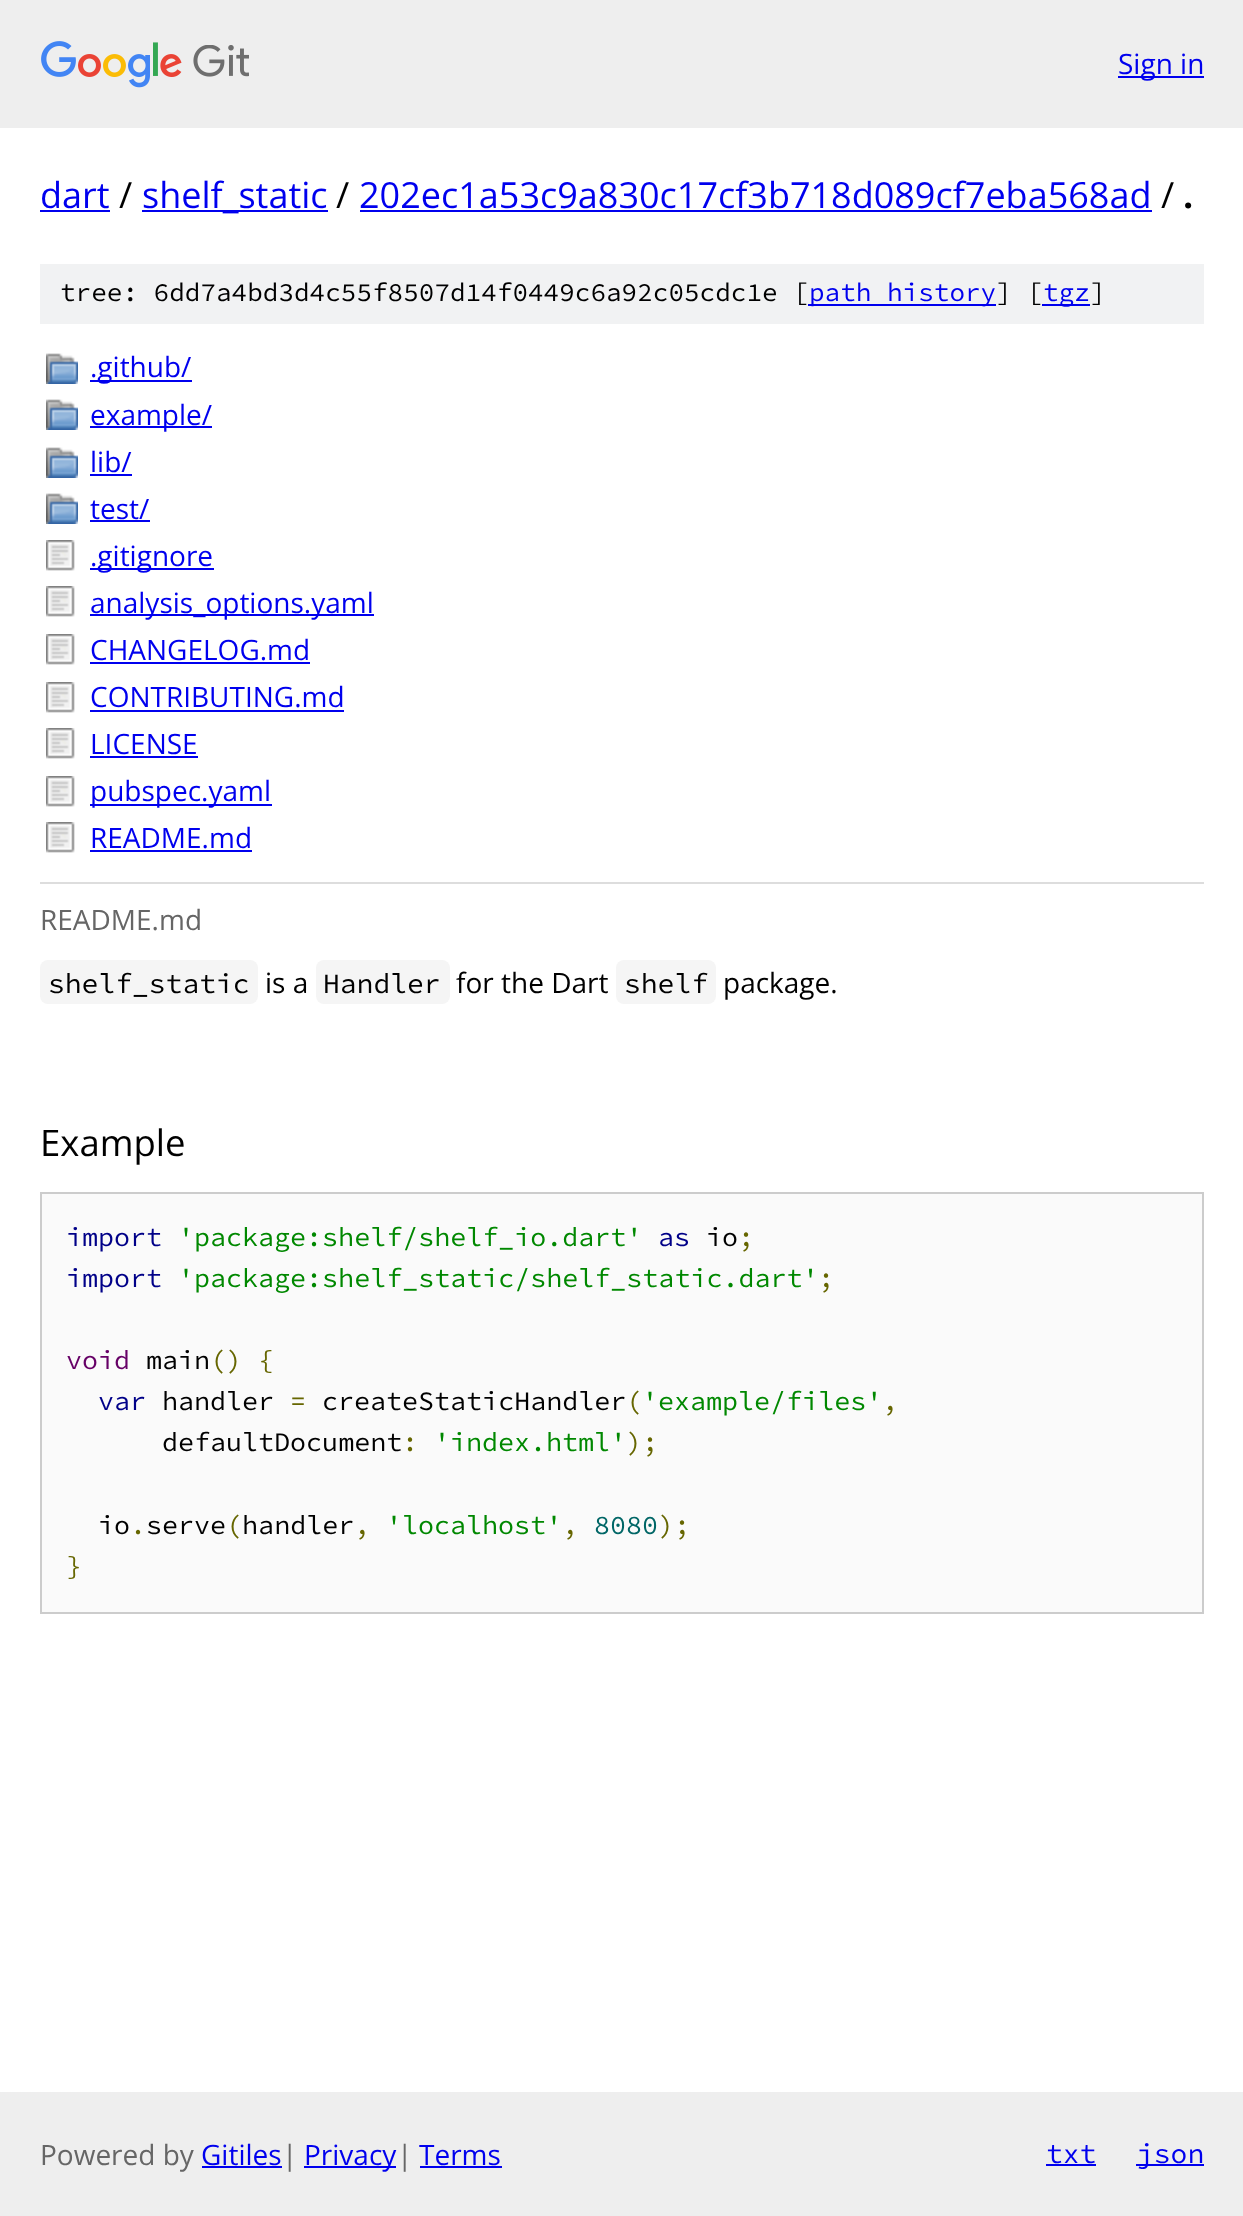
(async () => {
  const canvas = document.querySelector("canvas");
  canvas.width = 1243;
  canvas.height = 2216;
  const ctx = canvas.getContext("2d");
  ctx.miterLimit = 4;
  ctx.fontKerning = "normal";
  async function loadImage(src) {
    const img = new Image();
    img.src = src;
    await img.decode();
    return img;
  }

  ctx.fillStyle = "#ffffff";
  ctx.fillRect(0, 0, 1243, 2216);
  ctx.fillStyle = "#eeeeee";
  ctx.fillRect(0, 0, 1243, 128);
  ctx.drawImage(await loadImage("img/1.png"), 41, 41, 208, 47);
  for (const [x, y, w, h, color] of [
    [1118, 76, 86, 2, "#0000ee"],
    [40, 210, 70, 2, "#0000ee"],
    [142, 210, 186, 2, "#0000ee"],
    [360, 210, 792, 2, "#0000ee"],
    [40, 264, 1164, 60, "#f1f2f3"],
    [808, 304, 188, 2, "#0000ee"],
    [1042, 304, 48, 2, "#0000ee"],
  ]) {
    ctx.fillStyle = color;
    ctx.fillRect(x, y, w, h);
  }
  ctx.drawImage(await loadImage("img/2.png"), 46, 353, 32, 31);
  ctx.fillRect(90, 380, 102, 2);
  ctx.drawImage(await loadImage("img/2.png"), 46, 399, 32, 31);
  ctx.fillRect(90, 426, 122, 2);
  ctx.drawImage(await loadImage("img/2.png"), 46, 447, 32, 31);
  ctx.fillRect(90, 474, 42, 2);
  ctx.drawImage(await loadImage("img/2.png"), 46, 493, 32, 31);
  ctx.fillRect(90, 520, 60, 2);
  ctx.drawImage(await loadImage("img/3.png"), 46, 540, 29, 31);
  ctx.fillRect(90, 568, 124, 2);
  ctx.drawImage(await loadImage("img/3.png"), 46, 586, 29, 31);
  ctx.fillRect(90, 614, 284, 2);
  ctx.drawImage(await loadImage("img/3.png"), 46, 634, 29, 31);
  ctx.fillRect(90, 662, 220, 2);
  ctx.drawImage(await loadImage("img/3.png"), 46, 682, 29, 31);
  ctx.fillRect(90, 710, 254, 2);
  ctx.drawImage(await loadImage("img/3.png"), 46, 728, 29, 31);
  ctx.fillRect(90, 756, 108, 2);
  ctx.drawImage(await loadImage("img/3.png"), 46, 776, 29, 31);
  ctx.fillRect(90, 804, 182, 2);
  ctx.drawImage(await loadImage("img/3.png"), 46, 822, 29, 31);
  ctx.fillRect(90, 850, 162, 2);
  ctx.fillStyle = "#dddddd";
  ctx.fillRect(40, 882, 1164, 2);
  ctx.fillStyle = "#f5f5f5";
  ctx.beginPath();
  ctx.roundRect(40, 960, 218, 44, 8);
  ctx.fill();
  ctx.beginPath();
  ctx.roundRect(316, 960, 134, 44, 8);
  ctx.fill();
  ctx.beginPath();
  ctx.roundRect(616, 960, 100, 44, 8);
  ctx.fill();
  ctx.fillStyle = "#fafafa";
  ctx.beginPath();
  ctx.rect(41, 1193, 1162, 420);
  ctx.fill();
  ctx.strokeStyle = "#cccccc";
  ctx.lineWidth = 2;
  ctx.stroke();
  for (const [x, y, w, h, color] of [
    [0, 2092, 1243, 124, "#eeeeee"],
    [202, 2166, 80, 2, "#0000ee"],
    [304, 2166, 92, 2, "#0000ee"],
    [420, 2166, 82, 2, "#0000ee"],
    [1046, 2164, 50, 2, "#0000ee"],
    [1136, 2164, 68, 2, "#0000ee"],
  ]) {
    ctx.fillStyle = color;
    ctx.fillRect(x, y, w, h);
  }
  ctx.font = "28px Open Sans";
  ctx.fillText("Sign in", 1118, 74);
  ctx.font = "36px Open Sans";
  ctx.fillText("dart", 40, 208);
  ctx.fillStyle = "#000000";
  ctx.fillText("/", 119, 208);
  ctx.fillStyle = "#0000ee";
  ctx.fillText("shelf_static", 142, 208);
  ctx.fillStyle = "#000000";
  ctx.fillText("/", 336, 208);
  ctx.fillStyle = "#0000ee";
  ctx.fillText("202ec1a53c9a830c17cf3b718d089cf7eba568ad", 359, 208);
  ctx.fillStyle = "#000000";
  ctx.fillText("/", 1161, 208);
  ctx.font = "bold 36px Open Sans";
  ctx.fillText(".", 1183, 208);
  ctx.font = "200 26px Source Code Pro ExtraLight";
  ctx.fillText("tree: 6dd7a4bd3d4c55f8507d14f0449c6a92c05cdc1e [", 60, 301);
  ctx.fillStyle = "#0000ee";
  ctx.fillText("path history", 809, 301);
  ctx.fillStyle = "#000000";
  ctx.fillText("] [", 996, 301);
  ctx.fillStyle = "#0000ee";
  ctx.fillText("tgz", 1043, 301);
  ctx.fillStyle = "#000000";
  ctx.fillText("]", 1090, 301);
  ctx.font = "28px Open Sans";
  ctx.fillStyle = "#0000ee";
  for (const [text, x, y] of [
    [".github/", 90, 377],
    ["example/", 90, 425],
    ["lib/", 90, 472],
    ["test/", 90, 519],
    [".gitignore", 90, 566],
    ["analysis_options.yaml", 90, 613],
    ["CHANGELOG.md", 90, 660],
    ["CONTRIBUTING.md", 90, 707],
    ["LICENSE", 90, 754],
    ["pubspec.yaml", 90, 801],
    ["README.md", 90, 848],
  ]) {
    ctx.fillText(text, x, y);
  }
  ctx.fillStyle = "#666666";
  ctx.fillText("README.md", 40, 930);
  ctx.font = "200 28px Source Code Pro ExtraLight";
  ctx.fillStyle = "#000000";
  ctx.fillText("shelf_static", 48, 993);
  ctx.font = "28px Open Sans";
  ctx.fillText("is a", 265, 993);
  ctx.font = "200 28px Source Code Pro ExtraLight";
  ctx.fillText("Handler", 323, 993);
  ctx.font = "28px Open Sans";
  ctx.fillText("for the Dart", 456, 993);
  ctx.font = "200 28px Source Code Pro ExtraLight";
  ctx.fillText("shelf", 624, 993);
  ctx.font = "28px Open Sans";
  ctx.fillText("package.", 723, 993);
  ctx.font = "36.5px Open Sans";
  ctx.fillText("Example", 40, 1156);
  ctx.font = "200 26.7px Source Code Pro ExtraLight";
  ctx.fillStyle = "#000088";
  ctx.fillText("import", 66, 1246);
  ctx.fillStyle = "#008800";
  ctx.fillText("'package:shelf/shelf_io.dart'", 178, 1246);
  ctx.fillStyle = "#000088";
  ctx.fillText("as", 658, 1246);
  ctx.fillStyle = "#000000";
  ctx.fillText("io", 706, 1246);
  ctx.fillStyle = "#666600";
  ctx.fillText(";", 738, 1246);
  ctx.fillStyle = "#000088";
  ctx.fillText("import", 66, 1287);
  ctx.fillStyle = "#008800";
  ctx.fillText("'package:shelf_static/shelf_static.dart'", 178, 1287);
  ctx.fillStyle = "#666600";
  ctx.fillText(";", 818, 1287);
  ctx.fillStyle = "#660066";
  ctx.fillText("void", 66, 1369);
  ctx.fillStyle = "#000000";
  ctx.fillText("main", 146, 1369);
  ctx.fillStyle = "#666600";
  ctx.fillText("() {", 210, 1369);
  ctx.fillStyle = "#000088";
  ctx.fillText("var", 98, 1410);
  ctx.fillStyle = "#000000";
  ctx.fillText("handler", 162, 1410);
  ctx.fillStyle = "#666600";
  ctx.fillText("=", 290, 1410);
  ctx.fillStyle = "#000000";
  ctx.fillText("createStaticHandler", 322, 1410);
  ctx.fillStyle = "#666600";
  ctx.fillText("(", 626, 1410);
  ctx.fillStyle = "#008800";
  ctx.fillText("'example/files'", 642, 1410);
  ctx.fillStyle = "#666600";
  ctx.fillText(",", 882, 1410);
  ctx.fillStyle = "#000000";
  ctx.fillText("defaultDocument", 162, 1451);
  ctx.fillStyle = "#666600";
  ctx.fillText(":", 402, 1451);
  ctx.fillStyle = "#008800";
  ctx.fillText("'index.html'", 434, 1451);
  ctx.fillStyle = "#666600";
  ctx.fillText(");", 626, 1451);
  ctx.fillStyle = "#000000";
  ctx.fillText("io serve handler", 98, 1534);
  ctx.fillStyle = "#666600";
  for (const [text, x, y] of [
    [".", 130, 1534],
    ["(", 226, 1534],
    [",", 354, 1534],
  ]) {
    ctx.fillText(text, x, y);
  }
  ctx.fillStyle = "#008800";
  ctx.fillText("'localhost'", 386, 1534);
  ctx.fillStyle = "#666600";
  ctx.fillText(",", 562, 1534);
  ctx.fillStyle = "#006666";
  ctx.fillText("8080", 594, 1534);
  ctx.fillStyle = "#666600";
  ctx.fillText(");", 658, 1534);
  ctx.fillText("}", 66, 1575);
  ctx.font = "28px Open Sans";
  ctx.fillStyle = "#666666";
  ctx.fillText("Powered by", 40, 2165);
  ctx.fillStyle = "#0000ee";
  ctx.fillText("Gitiles", 201, 2165);
  ctx.fillStyle = "#666666";
  ctx.fillText("|", 282, 2165);
  ctx.fillStyle = "#0000ee";
  ctx.fillText("Privacy", 304, 2165);
  ctx.fillStyle = "#666666";
  ctx.fillText("|", 397, 2165);
  ctx.fillStyle = "#0000ee";
  ctx.fillText("Terms", 419, 2165);
  ctx.font = "200 28px Source Code Pro ExtraLight";
  ctx.fillText("txt", 1046, 2163);
  ctx.fillText("json", 1137, 2163);
})();
